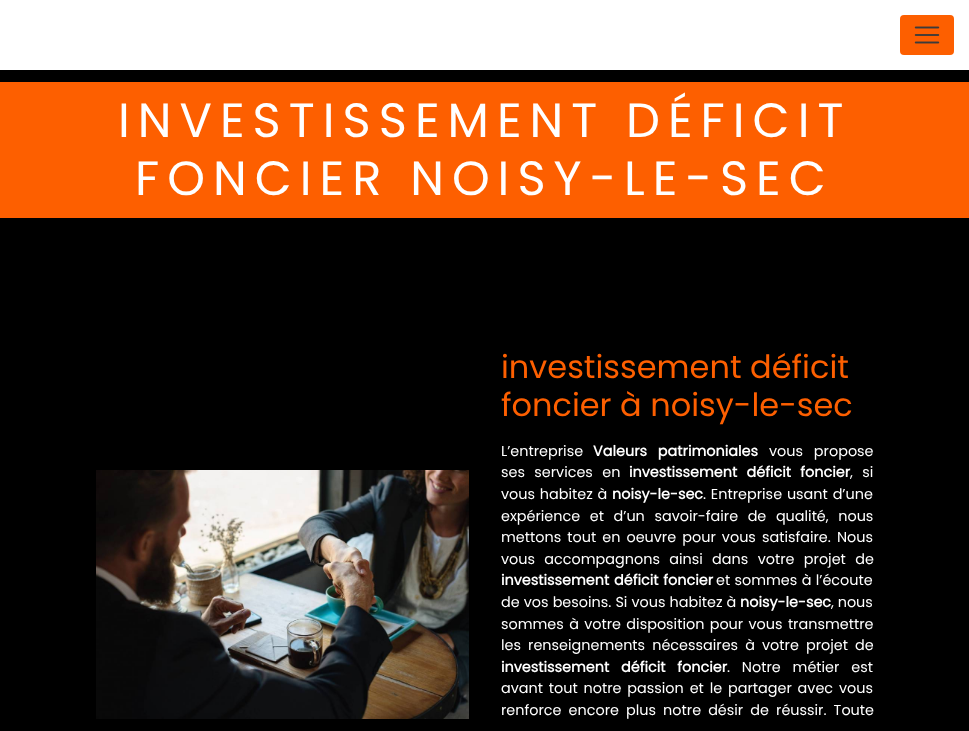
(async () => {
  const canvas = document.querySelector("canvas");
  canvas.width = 969;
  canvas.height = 731;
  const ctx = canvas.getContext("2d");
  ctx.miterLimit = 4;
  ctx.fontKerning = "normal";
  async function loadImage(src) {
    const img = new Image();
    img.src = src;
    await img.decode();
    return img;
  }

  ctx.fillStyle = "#000000";
  ctx.fillRect(0, 0, 969, 731);
  ctx.fillStyle = "#ffffff";
  ctx.fillRect(0, 0, 969, 70);
  ctx.fillStyle = "#fd5f00";
  ctx.beginPath();
  ctx.roundRect(900, 15, 54, 40, 4);
  ctx.fill();
  ctx.drawImage(await loadImage("img/1.png"), 914, 26, 26, 18);
  ctx.fillRect(0, 82, 969, 136);
  ctx.drawImage(await loadImage("img/2.png"), 96, 470, 373, 249);
  ctx.letterSpacing = "8px";
  ctx.font = "48px Poppins";
  ctx.fillStyle = "#ffffff";
  ctx.fillText("INVESTISSEMENT DÉFICIT", 118, 137);
  ctx.fillText("FONCIER NOISY-LE-SEC", 135, 195);
  ctx.letterSpacing = "0px";
  ctx.font = "32px Poppins";
  ctx.fillStyle = "#fd5f00";
  ctx.fillText("investissement déficit", 501, 378);
  ctx.fillText("foncier à noisy-le-sec", 501, 416);
  ctx.font = "14.4px Poppins";
  ctx.fillStyle = "#ffffff";
  ctx.fillText("L’entreprise", 501, 456);
  ctx.wordSpacing = "7px";
  ctx.font = "bold 14.4px Poppins";
  ctx.fillText("Valeurs patrimoniales", 593, 456);
  ctx.font = "14.4px Poppins";
  ctx.fillText("vous propose", 769, 456);
  ctx.wordSpacing = "5.5px";
  ctx.fillText("ses services en", 501, 477);
  ctx.font = "bold 14.4px Poppins";
  ctx.fillText("investissement déficit foncier", 629, 477);
  ctx.font = "14.4px Poppins";
  ctx.fillText(", si", 850, 477);
  ctx.wordSpacing = "1px";
  ctx.fillText("vous habitez à", 501, 499);
  ctx.wordSpacing = "0px";
  ctx.font = "bold 14.4px Poppins";
  ctx.fillText("noisy-le-sec", 612, 499);
  ctx.wordSpacing = "1px";
  ctx.font = "14.4px Poppins";
  ctx.fillText(". Entreprise usant d’une", 703, 499);
  ctx.wordSpacing = "5.75px";
  ctx.fillText("expérience et d’un savoir-faire de qualité, nous", 501, 521);
  ctx.wordSpacing = "2.25px";
  ctx.fillText("mettons tout en oeuvre pour vous satisfaire. Nous", 501, 542);
  ctx.wordSpacing = "5.5px";
  ctx.fillText("vous accompagnons ainsi dans votre projet de", 501, 564);
  ctx.wordSpacing = "1px";
  ctx.font = "bold 14.4px Poppins";
  ctx.fillText("investissement déficit foncier", 501, 585);
  ctx.wordSpacing = "0.5px";
  ctx.font = "14.4px Poppins";
  ctx.fillText("et sommes à l’écoute", 716, 585);
  ctx.wordSpacing = "0.25px";
  ctx.fillText("de vos besoins. Si vous habitez à", 501, 607);
  ctx.wordSpacing = "0px";
  ctx.font = "bold 14.4px Poppins";
  ctx.fillText("noisy-le-sec", 740, 607);
  ctx.font = "14.4px Poppins";
  ctx.fillText(", nous", 831, 607);
  ctx.wordSpacing = "1.5px";
  ctx.fillText("sommes à votre disposition pour vous transmettre", 501, 629);
  ctx.wordSpacing = "3.25px";
  ctx.fillText("les renseignements nécessaires à votre projet de", 501, 650);
  ctx.wordSpacing = "8px";
  ctx.font = "bold 14.4px Poppins";
  ctx.fillText("investissement déficit foncier", 501, 672);
  ctx.font = "14.4px Poppins";
  ctx.fillText(". Notre métier est", 727, 672);
  ctx.wordSpacing = "2px";
  ctx.fillText("avant tout notre passion et le partager avec vous", 501, 693);
  ctx.wordSpacing = "3.25px";
  ctx.fillText("renforce encore plus notre désir de réussir. Toute", 501, 715);
})();
